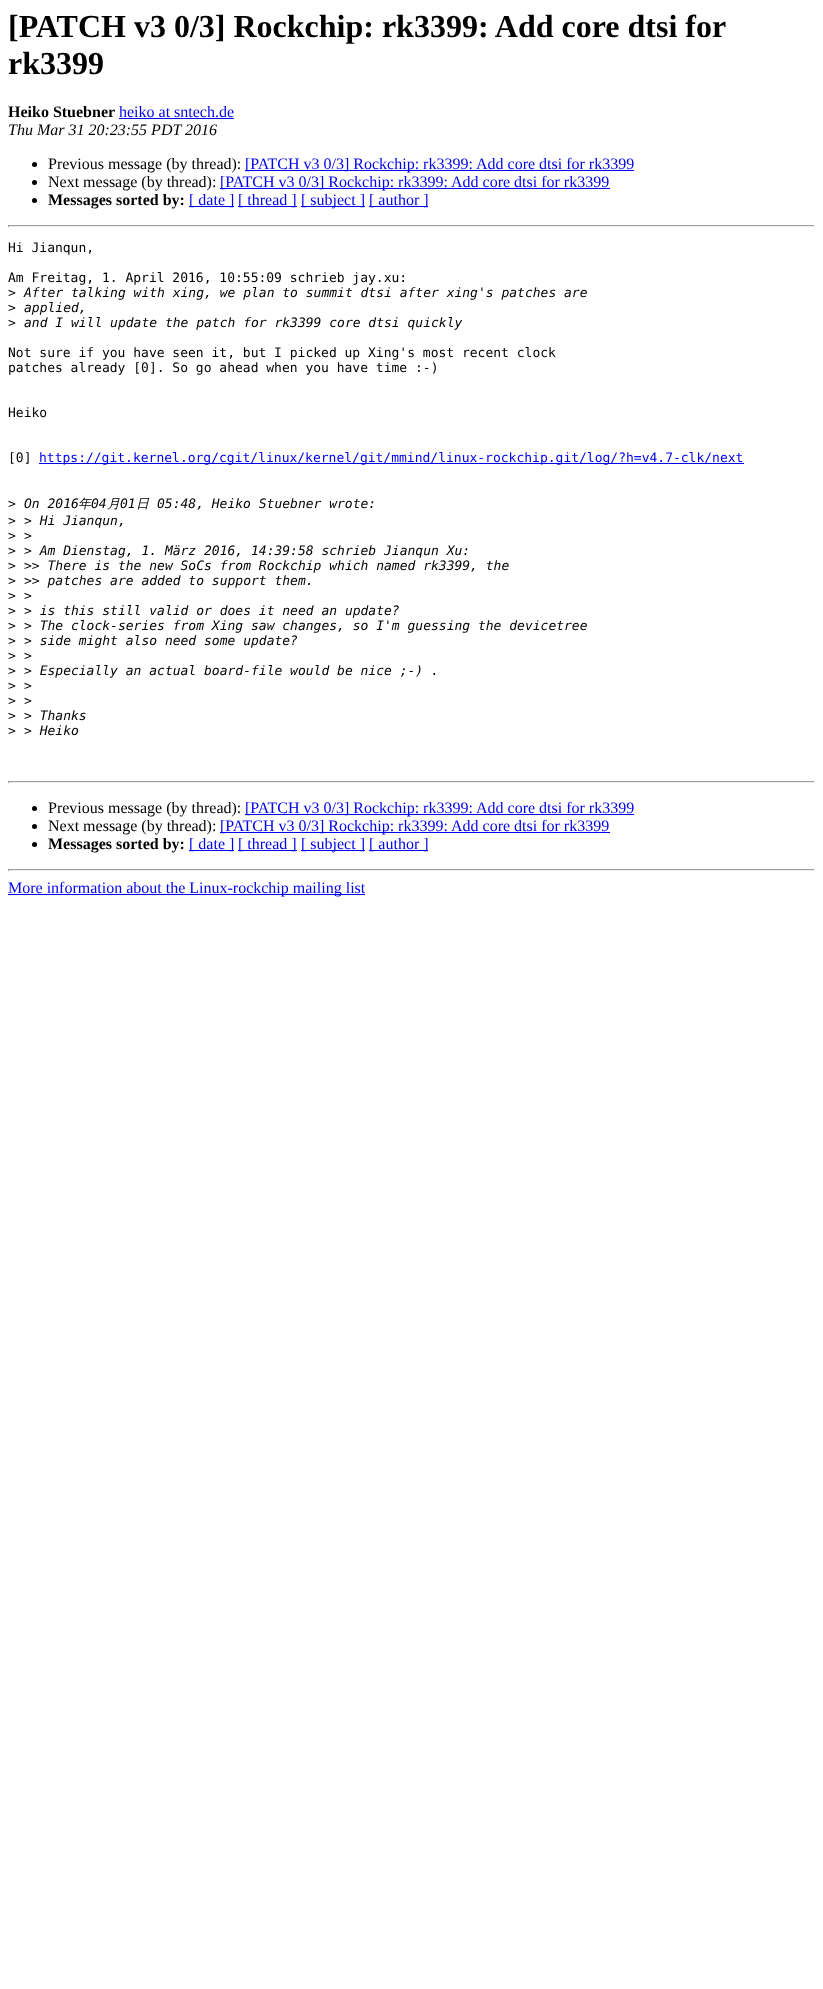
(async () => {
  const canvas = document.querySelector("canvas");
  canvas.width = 823;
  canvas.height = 1989;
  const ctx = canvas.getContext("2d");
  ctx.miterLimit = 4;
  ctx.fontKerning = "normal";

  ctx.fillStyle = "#ffffff";
  ctx.fillRect(0, 0, 823, 1989);
  ctx.fillStyle = "#0000ee";
  ctx.fillRect(119, 118, 115, 1);
  ctx.fillStyle = "#000000";
  ctx.beginPath();
  ctx.arc(34.5, 164.5, 2.5, 0, Math.PI * 2);
  ctx.fill();
  ctx.fillStyle = "#0000ee";
  ctx.fillRect(245, 170, 389, 1);
  ctx.fillStyle = "#000000";
  ctx.beginPath();
  ctx.arc(34.5, 182.5, 2.5, 0, Math.PI * 2);
  ctx.fill();
  ctx.fillStyle = "#0000ee";
  ctx.fillRect(220, 188, 390, 1);
  ctx.fillStyle = "#000000";
  ctx.beginPath();
  ctx.arc(34.5, 200.5, 2.5, 0, Math.PI * 2);
  ctx.fill();
  for (const [x, y, w, h, color] of [
    [189, 206, 45, 1, "#0000ee"],
    [238, 206, 59, 1, "#0000ee"],
    [301, 206, 64, 1, "#0000ee"],
    [369, 206, 59, 1, "#0000ee"],
    [8, 225, 807, 1, "#9f9f9f"],
    [814, 225, 1, 2, "#eeeeee"],
    [8, 226, 807, 1, "#eeeeee"],
    [8, 225, 1, 2, "#9f9f9f"],
    [39, 463, 705, 1, "#0000ee"],
    [8, 781, 807, 1, "#9f9f9f"],
    [814, 781, 1, 2, "#eeeeee"],
    [8, 782, 807, 1, "#eeeeee"],
    [8, 781, 1, 2, "#9f9f9f"],
  ]) {
    ctx.fillStyle = color;
    ctx.fillRect(x, y, w, h);
  }
  ctx.fillStyle = "#000000";
  ctx.beginPath();
  ctx.arc(34.5, 808.5, 2.5, 0, Math.PI * 2);
  ctx.fill();
  ctx.fillStyle = "#0000ee";
  ctx.fillRect(245, 814, 389, 1);
  ctx.fillStyle = "#000000";
  ctx.beginPath();
  ctx.arc(34.5, 826.5, 2.5, 0, Math.PI * 2);
  ctx.fill();
  ctx.fillStyle = "#0000ee";
  ctx.fillRect(220, 832, 390, 1);
  ctx.fillStyle = "#000000";
  ctx.beginPath();
  ctx.arc(34.5, 844.5, 2.5, 0, Math.PI * 2);
  ctx.fill();
  for (const [x, y, w, h, color] of [
    [189, 850, 45, 1, "#0000ee"],
    [238, 850, 59, 1, "#0000ee"],
    [301, 850, 64, 1, "#0000ee"],
    [369, 850, 59, 1, "#0000ee"],
    [8, 869, 807, 1, "#9f9f9f"],
    [814, 869, 1, 2, "#eeeeee"],
    [8, 870, 807, 1, "#eeeeee"],
    [8, 869, 1, 2, "#9f9f9f"],
    [8, 894, 357, 1, "#0000ee"],
  ]) {
    ctx.fillStyle = color;
    ctx.fillRect(x, y, w, h);
  }
  ctx.font = "bold 32px Liberation Serif";
  ctx.fillStyle = "#000000";
  ctx.fillText("[PATCH v3 0/3] Rockchip: rk3399: Add core dtsi for", 8, 37);
  ctx.fillText("rk3399", 8, 74);
  ctx.font = "bold 16px Liberation Serif";
  ctx.fillText("Heiko Stuebner", 8, 117);
  ctx.font = "16px Liberation Serif";
  ctx.fillStyle = "#0000ee";
  ctx.fillText("heiko at sntech.de", 119, 117);
  ctx.font = "italic 16px Liberation Serif";
  ctx.fillStyle = "#000000";
  ctx.fillText("Thu Mar 31 20:23:55 PDT 2016", 8, 135);
  ctx.font = "16px Liberation Serif";
  ctx.fillText("Previous message (by thread):", 48, 169);
  ctx.fillStyle = "#0000ee";
  ctx.fillText("[PATCH v3 0/3] Rockchip: rk3399: Add core dtsi for rk3399", 245, 169);
  ctx.fillStyle = "#000000";
  ctx.fillText("Next message (by thread):", 48, 187);
  ctx.fillStyle = "#0000ee";
  ctx.fillText("[PATCH v3 0/3] Rockchip: rk3399: Add core dtsi for rk3399", 220, 187);
  ctx.font = "bold 16px Liberation Serif";
  ctx.fillStyle = "#000000";
  ctx.fillText("Messages sorted by:", 48, 205);
  ctx.font = "16px Liberation Serif";
  ctx.fillStyle = "#0000ee";
  for (const [text, x, y] of [
    ["[ date ]", 189, 205],
    ["[ thread ]", 238, 205],
    ["[ subject ]", 301, 205],
    ["[ author ]", 369, 205],
  ]) {
    ctx.fillText(text, x, y);
  }
  ctx.font = "13px DejaVu Sans Mono";
  ctx.fillStyle = "#000000";
  for (const [text, x, y] of [
    ["Hi Jianqun,", 8, 252],
    ["Am Freitag, 1. April 2016, 10:55:09 schrieb jay.xu:", 8, 282],
    [">", 8, 297],
  ]) {
    ctx.fillText(text, x, y);
  }
  ctx.font = "italic 13px DejaVu Sans Mono";
  ctx.fillText("After talking with xing, we plan to summit dtsi after xing's patches are", 24, 297);
  ctx.font = "13px DejaVu Sans Mono";
  ctx.fillText(">", 8, 312);
  ctx.font = "italic 13px DejaVu Sans Mono";
  ctx.fillText("applied,", 24, 312);
  ctx.font = "13px DejaVu Sans Mono";
  ctx.fillText(">", 8, 327);
  ctx.font = "italic 13px DejaVu Sans Mono";
  ctx.fillText("and I will update the patch for rk3399 core dtsi quickly", 24, 327);
  ctx.font = "13px DejaVu Sans Mono";
  for (const [text, x, y] of [
    ["Not sure if you have seen it, but I picked up Xing's most recent clock", 8, 357],
    ["patches already [0]. So go ahead when you have time :-)", 8, 372],
    ["Heiko", 8, 417],
    ["[0]", 8, 462],
  ]) {
    ctx.fillText(text, x, y);
  }
  ctx.fillStyle = "#0000ee";
  ctx.fillText("https://git.kernel.org/cgit/linux/kernel/git/mmind/linux-rockchip.git/log/?h=v4.7-clk/next", 39, 462);
  ctx.fillStyle = "#000000";
  ctx.fillText(">", 8, 508);
  ctx.font = "italic 13px DejaVu Sans Mono";
  ctx.fillText("On 2016", 24, 508);
  ctx.font = "italic 500 13px WenQuanYi Zen Hei";
  ctx.fillText("年", 78, 508);
  ctx.font = "italic 13px DejaVu Sans Mono";
  ctx.fillText("04", 91, 508);
  ctx.font = "italic 500 13px WenQuanYi Zen Hei";
  ctx.fillText("月", 107, 508);
  ctx.font = "italic 13px DejaVu Sans Mono";
  ctx.fillText("01", 120, 508);
  ctx.font = "italic 500 13px WenQuanYi Zen Hei";
  ctx.fillText("日", 136, 508);
  ctx.font = "italic 13px DejaVu Sans Mono";
  ctx.fillText("05:48, Heiko Stuebner wrote:", 157, 508);
  ctx.font = "13px DejaVu Sans Mono";
  ctx.fillText(">", 8, 525);
  ctx.font = "italic 13px DejaVu Sans Mono";
  ctx.fillText("> Hi Jianqun,", 24, 525);
  ctx.font = "13px DejaVu Sans Mono";
  ctx.fillText(">", 8, 540);
  ctx.font = "italic 13px DejaVu Sans Mono";
  ctx.fillText(">", 24, 540);
  ctx.font = "13px DejaVu Sans Mono";
  ctx.fillText(">", 8, 555);
  ctx.font = "italic 13px DejaVu Sans Mono";
  ctx.fillText("> Am Dienstag, 1. März 2016, 14:39:58 schrieb Jianqun Xu:", 24, 555);
  ctx.font = "13px DejaVu Sans Mono";
  ctx.fillText(">", 8, 570);
  ctx.font = "italic 13px DejaVu Sans Mono";
  ctx.fillText(">> There is the new SoCs from Rockchip which named rk3399, the", 24, 570);
  ctx.font = "13px DejaVu Sans Mono";
  ctx.fillText(">", 8, 585);
  ctx.font = "italic 13px DejaVu Sans Mono";
  ctx.fillText(">> patches are added to support them.", 24, 585);
  ctx.font = "13px DejaVu Sans Mono";
  ctx.fillText(">", 8, 600);
  ctx.font = "italic 13px DejaVu Sans Mono";
  ctx.fillText(">", 24, 600);
  ctx.font = "13px DejaVu Sans Mono";
  ctx.fillText(">", 8, 615);
  ctx.font = "italic 13px DejaVu Sans Mono";
  ctx.fillText("> is this still valid or does it need an update?", 24, 615);
  ctx.font = "13px DejaVu Sans Mono";
  ctx.fillText(">", 8, 630);
  ctx.font = "italic 13px DejaVu Sans Mono";
  ctx.fillText("> The clock-series from Xing saw changes, so I'm guessing the devicetree", 24, 630);
  ctx.font = "13px DejaVu Sans Mono";
  ctx.fillText(">", 8, 645);
  ctx.font = "italic 13px DejaVu Sans Mono";
  ctx.fillText("> side might also need some update?", 24, 645);
  ctx.font = "13px DejaVu Sans Mono";
  ctx.fillText(">", 8, 660);
  ctx.font = "italic 13px DejaVu Sans Mono";
  ctx.fillText(">", 24, 660);
  ctx.font = "13px DejaVu Sans Mono";
  ctx.fillText(">", 8, 675);
  ctx.font = "italic 13px DejaVu Sans Mono";
  ctx.fillText("> Especially an actual board-file would be nice ;-) .", 24, 675);
  ctx.font = "13px DejaVu Sans Mono";
  ctx.fillText(">", 8, 690);
  ctx.font = "italic 13px DejaVu Sans Mono";
  ctx.fillText(">", 24, 690);
  ctx.font = "13px DejaVu Sans Mono";
  ctx.fillText(">", 8, 705);
  ctx.font = "italic 13px DejaVu Sans Mono";
  ctx.fillText(">", 24, 705);
  ctx.font = "13px DejaVu Sans Mono";
  ctx.fillText(">", 8, 720);
  ctx.font = "italic 13px DejaVu Sans Mono";
  ctx.fillText("> Thanks", 24, 720);
  ctx.font = "13px DejaVu Sans Mono";
  ctx.fillText(">", 8, 735);
  ctx.font = "italic 13px DejaVu Sans Mono";
  ctx.fillText("> Heiko", 24, 735);
  ctx.font = "16px Liberation Serif";
  ctx.fillText("Previous message (by thread):", 48, 813);
  ctx.fillStyle = "#0000ee";
  ctx.fillText("[PATCH v3 0/3] Rockchip: rk3399: Add core dtsi for rk3399", 245, 813);
  ctx.fillStyle = "#000000";
  ctx.fillText("Next message (by thread):", 48, 831);
  ctx.fillStyle = "#0000ee";
  ctx.fillText("[PATCH v3 0/3] Rockchip: rk3399: Add core dtsi for rk3399", 220, 831);
  ctx.font = "bold 16px Liberation Serif";
  ctx.fillStyle = "#000000";
  ctx.fillText("Messages sorted by:", 48, 849);
  ctx.font = "16px Liberation Serif";
  ctx.fillStyle = "#0000ee";
  for (const [text, x, y] of [
    ["[ date ]", 189, 849],
    ["[ thread ]", 238, 849],
    ["[ subject ]", 301, 849],
    ["[ author ]", 369, 849],
    ["More information about the Linux-rockchip mailing list", 8, 893],
  ]) {
    ctx.fillText(text, x, y);
  }
})();
